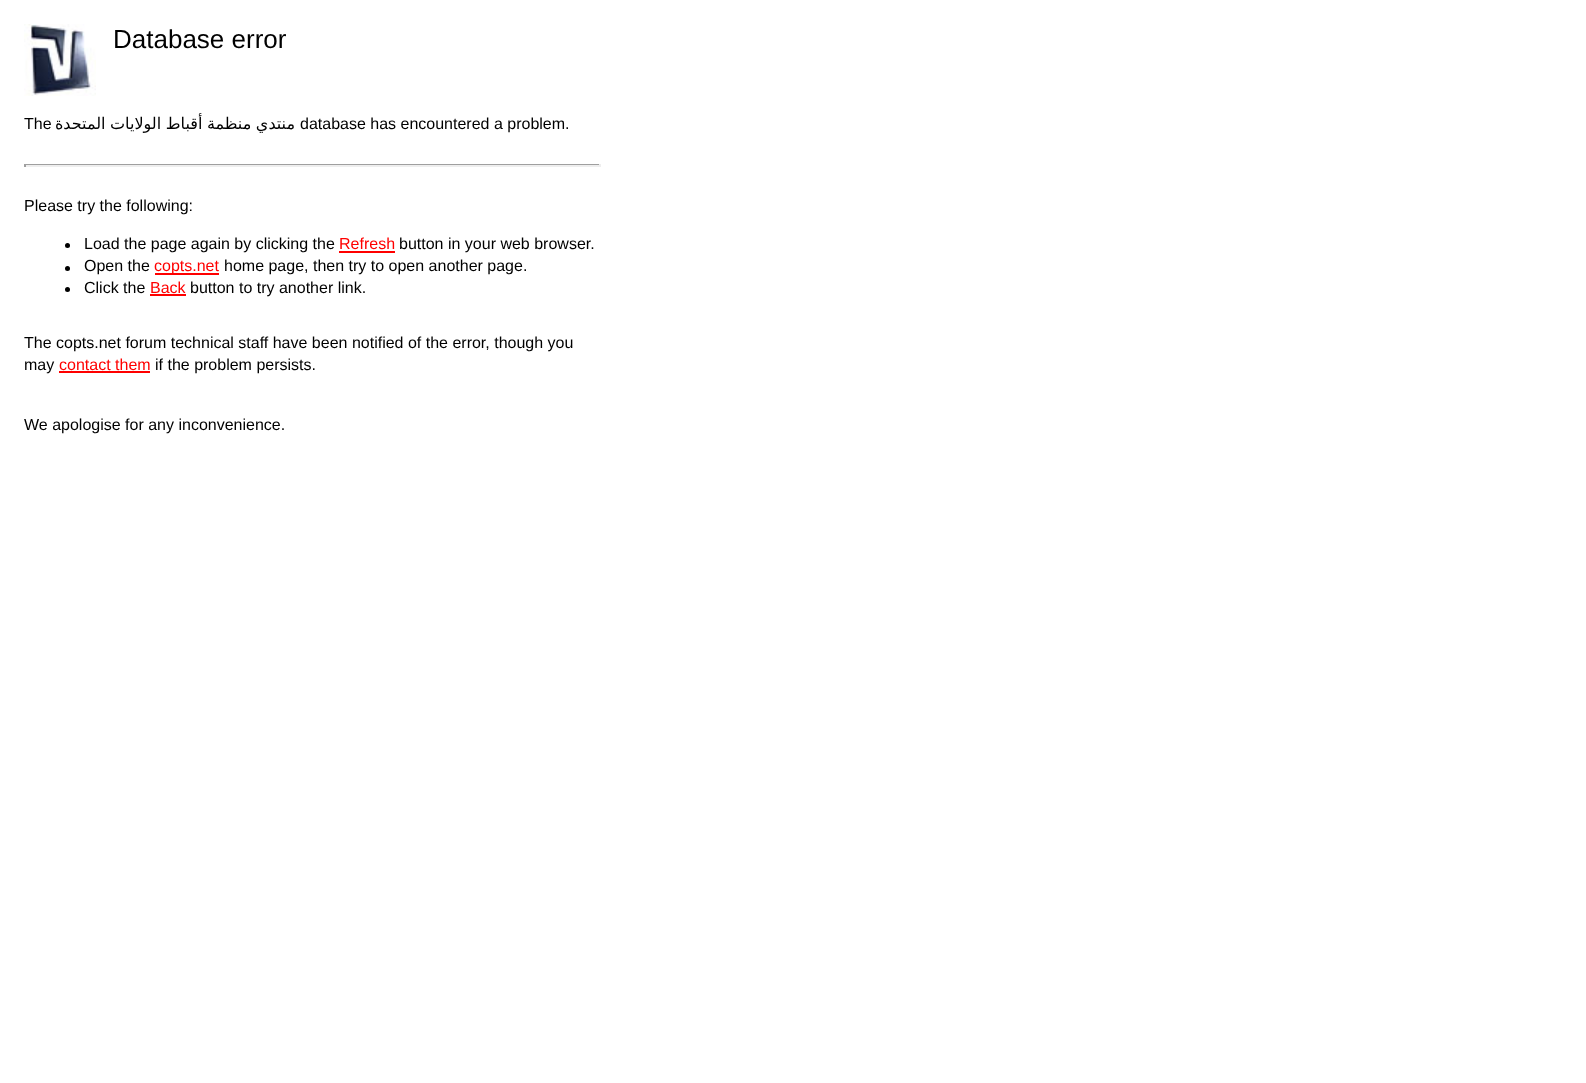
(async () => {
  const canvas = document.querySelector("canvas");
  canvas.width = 1586;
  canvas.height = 1083;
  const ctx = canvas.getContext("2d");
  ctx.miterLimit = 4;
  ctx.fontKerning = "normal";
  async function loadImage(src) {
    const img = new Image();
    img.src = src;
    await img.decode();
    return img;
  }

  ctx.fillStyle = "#ffffff";
  ctx.fillRect(0, 0, 1586, 1083);
  ctx.drawImage(await loadImage("img/1.png"), 24, 24, 72, 72);
  for (const [x, y, w, h, color] of [
    [24, 164, 576, 1, "#9f9f9f"],
    [599, 164, 2, 3, "#eeeeee"],
    [24, 165, 576, 2, "#eeeeee"],
    [24, 164, 2, 3, "#9f9f9f"],
  ]) {
    ctx.fillStyle = color;
    ctx.fillRect(x, y, w, h);
  }
  ctx.fillStyle = "#000000";
  ctx.beginPath();
  ctx.arc(67.5, 245.5, 2.5, 0, Math.PI * 2);
  ctx.fill();
  ctx.fillStyle = "#ff0000";
  ctx.fillRect(339, 251, 56, 2);
  ctx.fillStyle = "#000000";
  ctx.beginPath();
  ctx.arc(67.5, 268.5, 2.5, 0, Math.PI * 2);
  ctx.fill();
  ctx.fillStyle = "#ff0000";
  ctx.fillRect(155, 273, 64, 2);
  ctx.fillStyle = "#000000";
  ctx.beginPath();
  ctx.arc(67.5, 289.5, 2.5, 0, Math.PI * 2);
  ctx.fill();
  ctx.fillStyle = "#ff0000";
  ctx.fillRect(150, 294, 36, 2);
  ctx.fillRect(59, 371, 91, 2);
  ctx.font = "26px Liberation Sans";
  ctx.fillStyle = "#000000";
  ctx.fillText("Database error", 113, 48);
  ctx.font = "16px Liberation Sans";
  ctx.fillText("The", 24, 129);
  ctx.wordSpacing = "-0.5px";
  ctx.direction = "rtl";
  ctx.font = "16px DejaVu Sans";
  ctx.fillText("منتدي منظمة أقباط الولايات المتحدة", 295, 129);
  ctx.wordSpacing = "0px";
  ctx.direction = "ltr";
  ctx.font = "16px Liberation Sans";
  for (const [text, x, y] of [
    ["database has encountered a problem.", 300, 129],
    ["Please try the following:", 24, 211],
    ["Load the page again by clicking the", 84, 249],
  ]) {
    ctx.fillText(text, x, y);
  }
  ctx.fillStyle = "#ff0000";
  ctx.fillText("Refresh", 339, 249);
  ctx.fillStyle = "#000000";
  ctx.fillText("button in your web browser.", 399, 249);
  ctx.fillText("Open the", 84, 271);
  ctx.fillStyle = "#ff0000";
  ctx.fillText("copts.net", 154, 271);
  ctx.fillStyle = "#000000";
  ctx.fillText("home page, then try to open another page.", 224, 271);
  ctx.fillText("Click the", 84, 293);
  ctx.fillStyle = "#ff0000";
  ctx.fillText("Back", 150, 293);
  ctx.fillStyle = "#000000";
  for (const [text, x, y] of [
    ["button to try another link.", 190, 293],
    ["The copts.net forum technical staff have been notified of the error, though you", 24, 348],
    ["may", 24, 370],
  ]) {
    ctx.fillText(text, x, y);
  }
  ctx.fillStyle = "#ff0000";
  ctx.fillText("contact them", 59, 370);
  ctx.fillStyle = "#000000";
  ctx.fillText("if the problem persists.", 155, 370);
  ctx.fillText("We apologise for any inconvenience.", 24, 430);
})();
